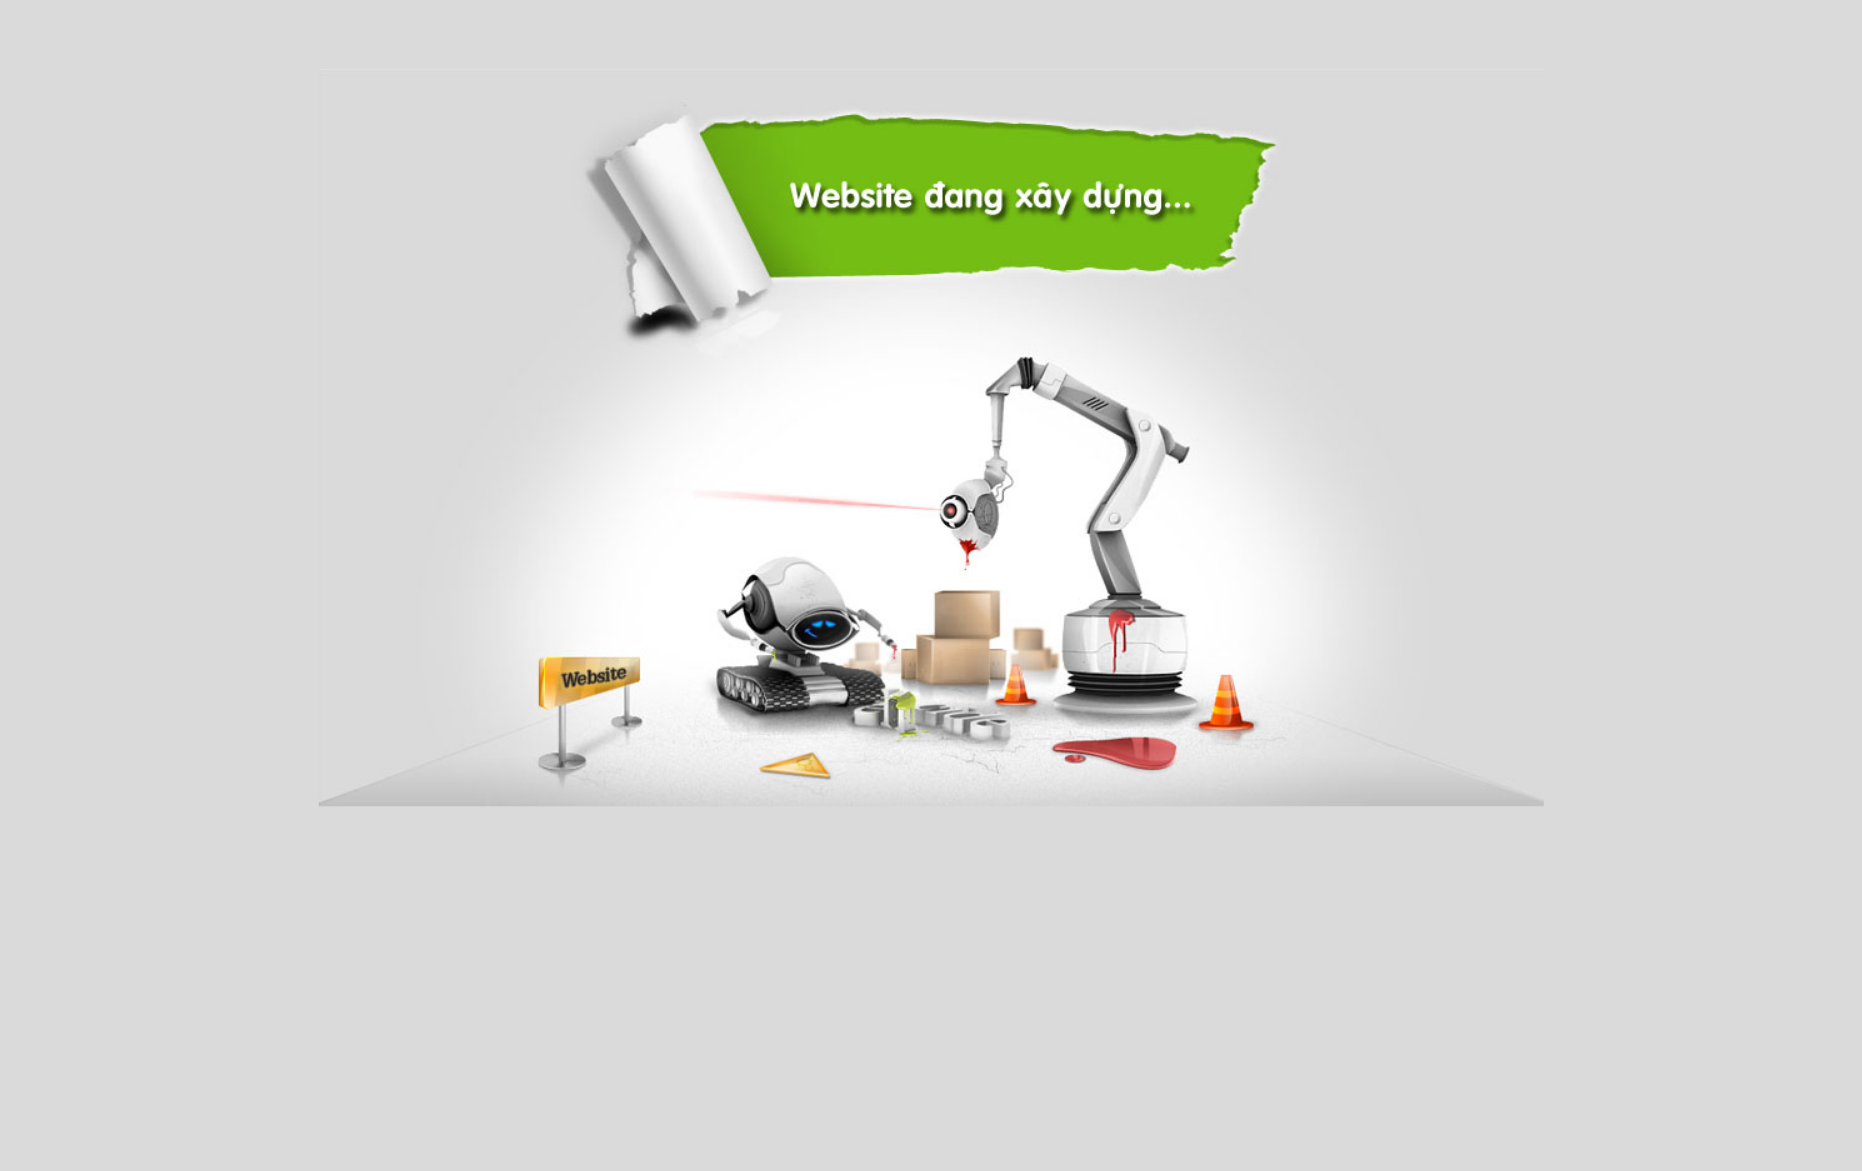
(async () => {
  const canvas = document.querySelector("canvas");
  canvas.width = 1862;
  canvas.height = 1171;
  const ctx = canvas.getContext("2d");
  ctx.miterLimit = 4;
  ctx.fontKerning = "normal";
  async function loadImage(src) {
    const img = new Image();
    img.src = src;
    await img.decode();
    return img;
  }

  ctx.fillStyle = "#dadada";
  ctx.fillRect(0, 0, 1862, 1171);
  ctx.drawImage(await loadImage("img/1.png"), 318, 69, 1226, 738);
})();
